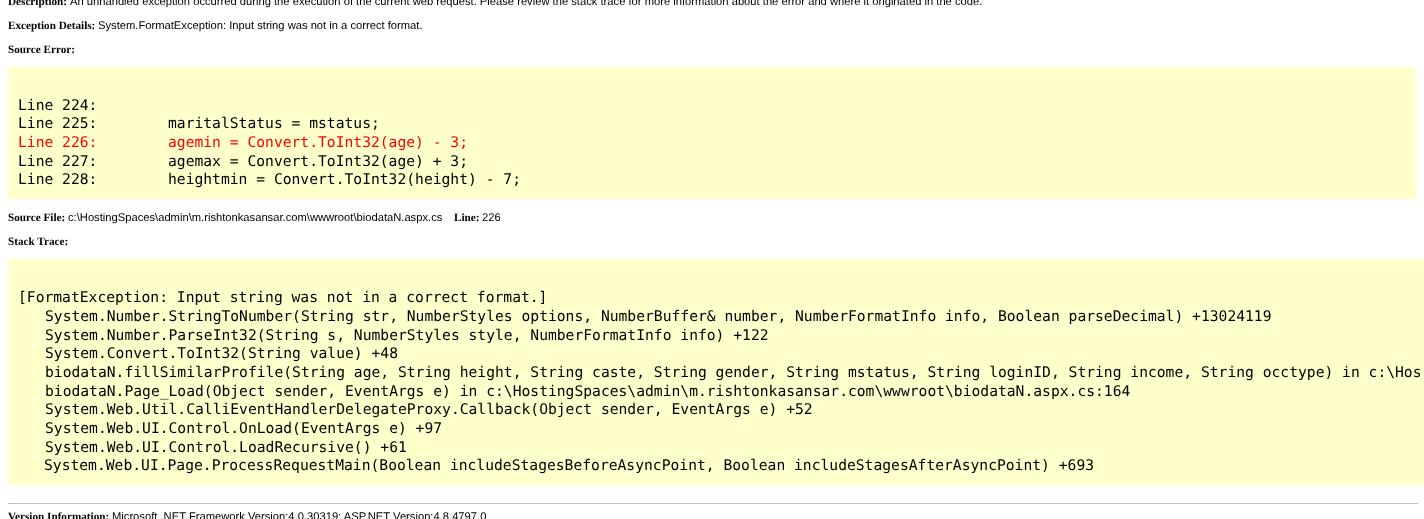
(async () => {
  const canvas = document.querySelector("canvas");
  canvas.width = 1424;
  canvas.height = 519;
  const ctx = canvas.getContext("2d");
  ctx.miterLimit = 4;
  ctx.fontKerning = "normal";

  ctx.fillStyle = "#ffffff";
  ctx.fillRect(0, 0, 1424, 519);
  for (const [x, y, w, h, color] of [
    [8, 67, 1408, 132, "#ffffcc"],
    [8, 259, 1416, 226, "#ffffcc"],
    [8, 503, 1410, 1, "#c0c0c0"],
  ]) {
    ctx.fillStyle = color;
    ctx.fillRect(x, y, w, h);
  }
  ctx.font = "bold 11.2px Liberation Serif";
  ctx.fillStyle = "#000000";
  ctx.fillText("Description:", 8, 5);
  ctx.font = "11.2px Liberation Sans";
  ctx.fillText("An unhandled exception occurred during the execution of the current web request. Please review the stack trace for more information about the error and where it originated in the code.", 70, 5);
  ctx.font = "bold 11.2px Liberation Serif";
  ctx.fillText("Exception Details:", 8, 29);
  ctx.font = "11.2px Liberation Sans";
  ctx.fillText("System.FormatException: Input string was not in a correct format.", 98, 29);
  ctx.font = "bold 11.2px Liberation Serif";
  ctx.fillText("Source Error:", 8, 53);
  ctx.font = "14.67px DejaVu Sans Mono";
  ctx.fillText("Line 224:", 18, 110);
  ctx.fillText("Line 225:        maritalStatus = mstatus;", 18, 128);
  ctx.fillStyle = "#ff0000";
  ctx.fillText("Line 226:        agemin = Convert.ToInt32(age) - 3;", 18, 147);
  ctx.fillStyle = "#000000";
  ctx.fillText("Line 227:        agemax = Convert.ToInt32(age) + 3;", 18, 166);
  ctx.fillText("Line 228:        heightmin = Convert.ToInt32(height) - 7;", 18, 184);
  ctx.font = "bold 11.2px Liberation Serif";
  ctx.fillText("Source File:", 8, 221);
  ctx.font = "11.2px Liberation Sans";
  ctx.fillText("c:\\HostingSpaces\\admin\\m.rishtonkasansar.com\\wwwroot\\biodataN.aspx.cs", 68, 221);
  ctx.font = "bold 11.2px Liberation Serif";
  ctx.fillText("Line:", 454, 221);
  ctx.font = "11.2px Liberation Sans";
  ctx.fillText("226", 482, 221);
  ctx.font = "bold 11.2px Liberation Serif";
  ctx.fillText("Stack Trace:", 8, 245);
  ctx.font = "14.67px DejaVu Sans Mono";
  for (const [text, x, y] of [
    ["[FormatException: Input string was not in a correct format.]", 18, 302],
    ["System.Number.StringToNumber(String str, NumberStyles options, NumberBuffer& number, NumberFormatInfo info, Boolean parseDecimal) +13024119", 45, 321],
    ["System.Number.ParseInt32(String s, NumberStyles style, NumberFormatInfo info) +122", 45, 340],
    ["System.Convert.ToInt32(String value) +48", 45, 358],
    ["biodataN.fillSimilarProfile(String age, String height, String caste, String gender, String mstatus, String loginID, String income, String occtype) in c:\\Hos", 45, 377],
    ["biodataN.Page_Load(Object sender, EventArgs e) in c:\\HostingSpaces\\admin\\m.rishtonkasansar.com\\wwwroot\\biodataN.aspx.cs:164", 45, 396],
    ["System.Web.Util.CalliEventHandlerDelegateProxy.Callback(Object sender, EventArgs e) +52", 45, 414],
    ["System.Web.UI.Control.OnLoad(EventArgs e) +97", 45, 433],
    ["System.Web.UI.Control.LoadRecursive() +61", 45, 452],
    ["System.Web.UI.Page.ProcessRequestMain(Boolean includeStagesBeforeAsyncPoint, Boolean includeStagesAfterAsyncPoint) +693", 44, 470],
  ]) {
    ctx.fillText(text, x, y);
  }
  ctx.font = "bold 11.2px Liberation Serif";
  ctx.fillText("Version Information:", 8, 520);
  ctx.font = "11.2px Liberation Sans";
  ctx.fillText("Microsoft .NET Framework Version:4.0.30319; ASP.NET Version:4.8.4797.0", 112, 520);
})();
